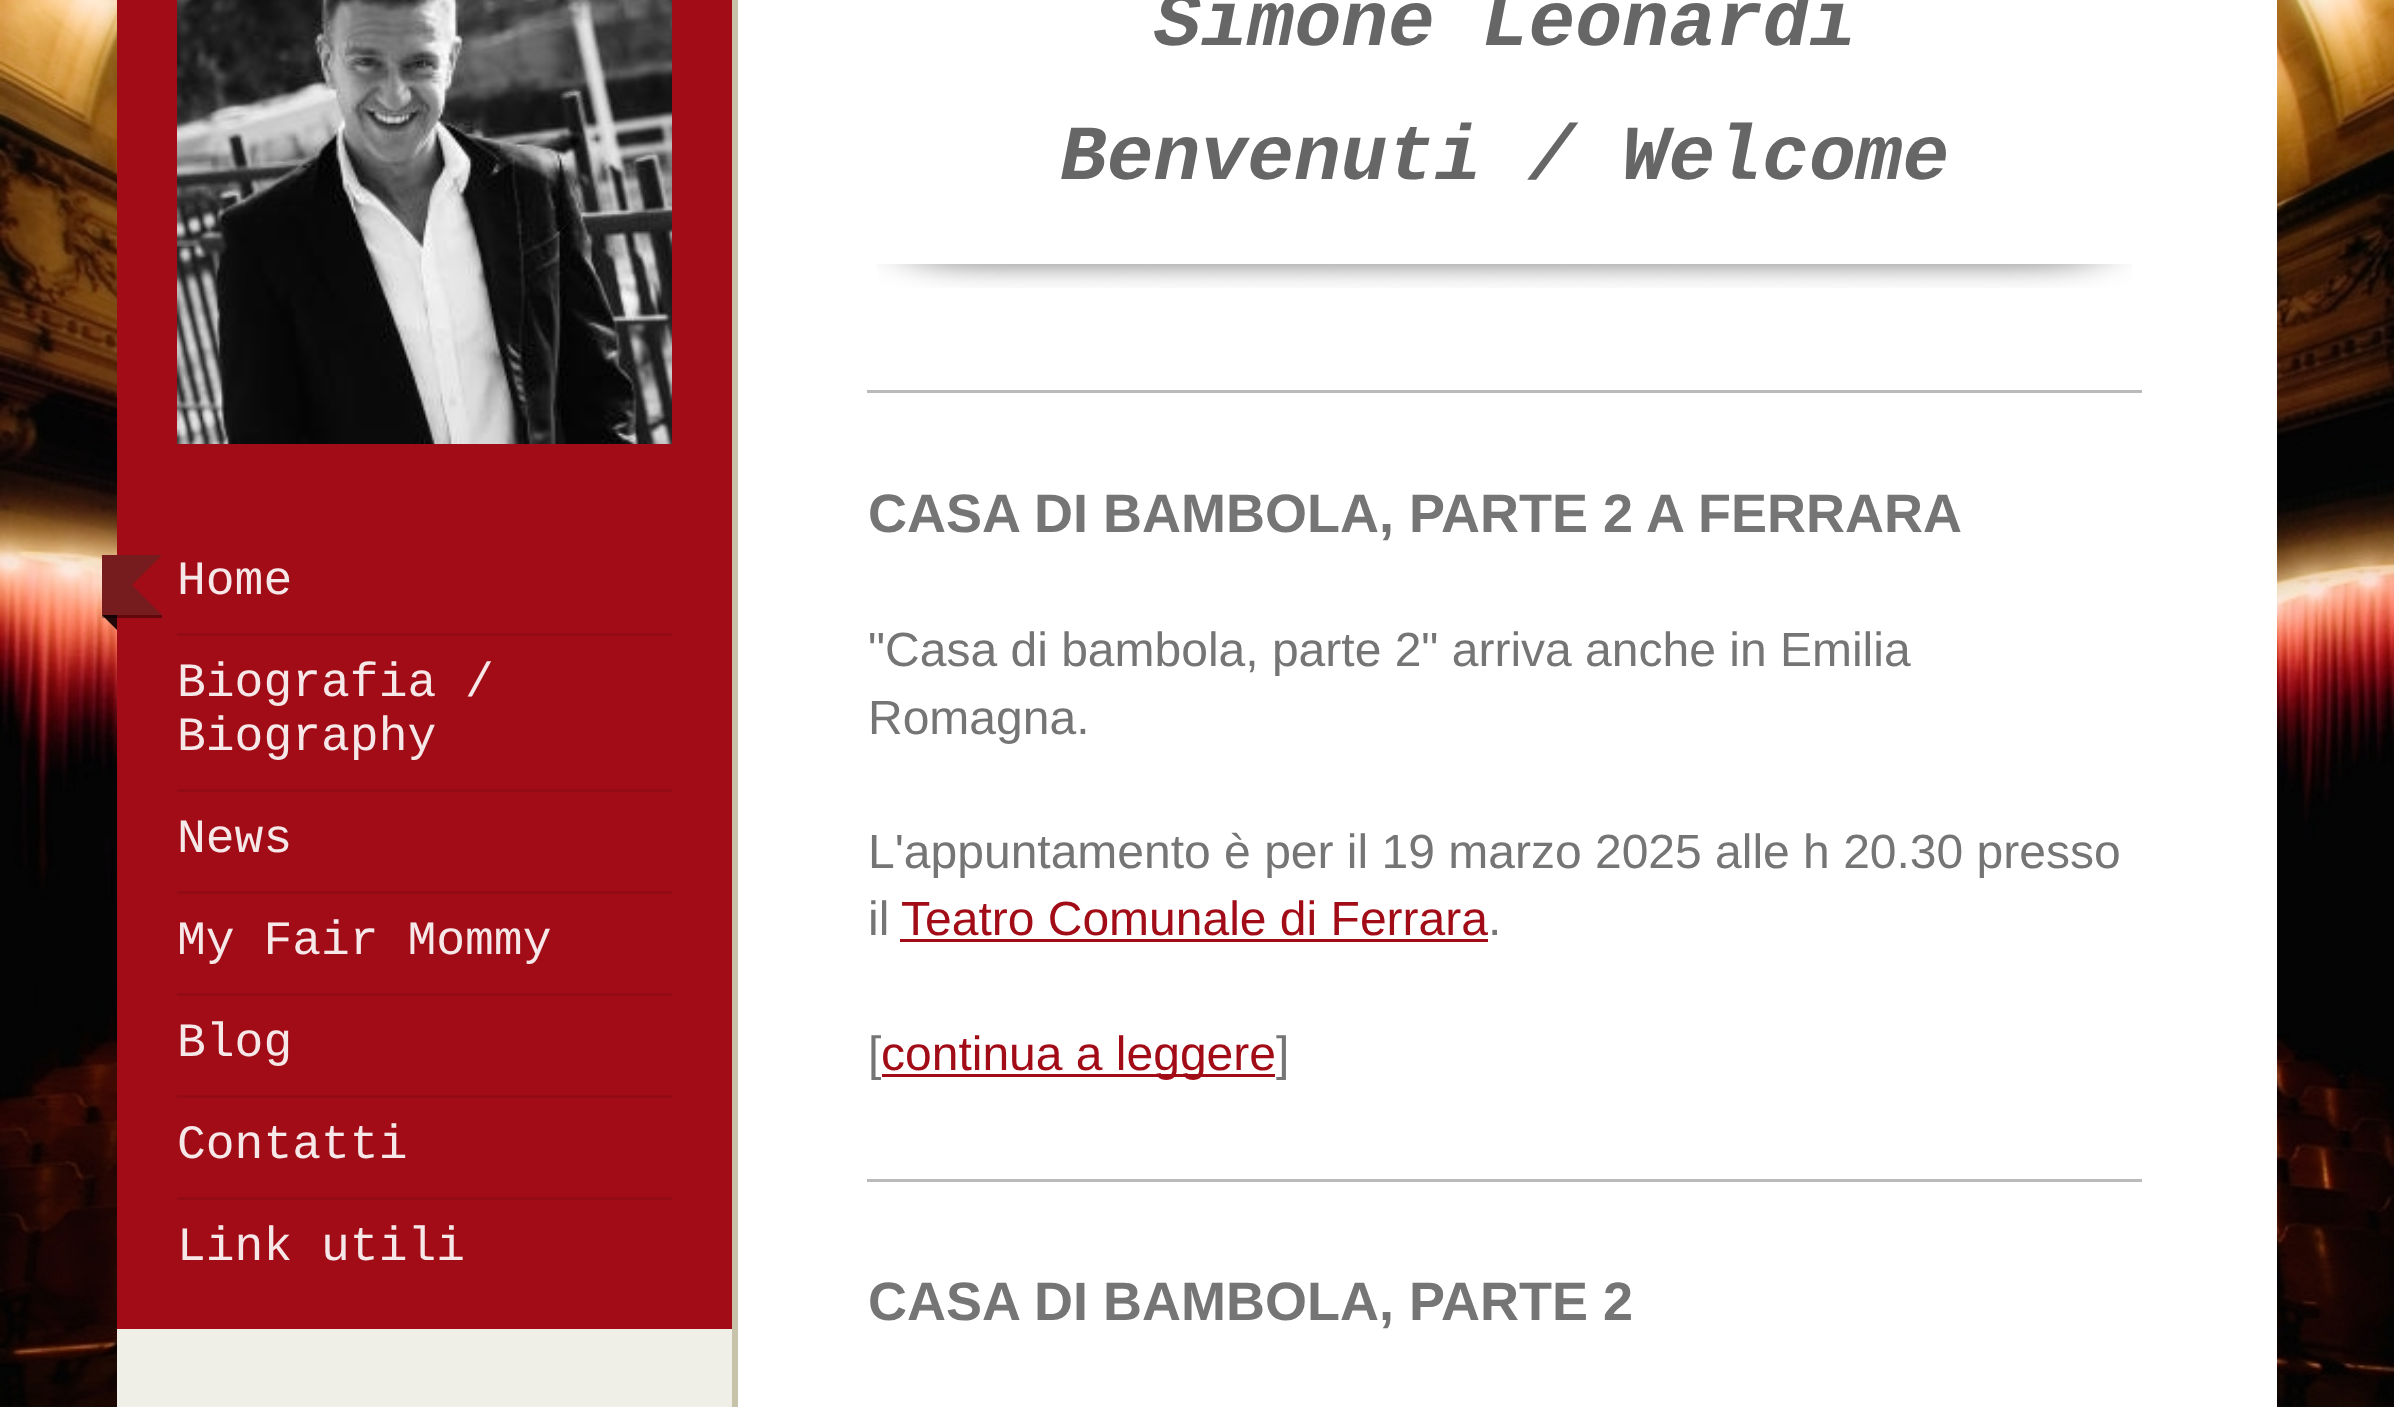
(async () => {
  const canvas = document.querySelector("canvas");
  canvas.width = 2394;
  canvas.height = 1407;
  const ctx = canvas.getContext("2d");
  ctx.miterLimit = 4;
  ctx.fontKerning = "normal";
  async function loadImage(src) {
    const img = new Image();
    img.src = src;
    await img.decode();
    return img;
  }
  let path;

  ctx.fillStyle = "#12110f";
  ctx.fillRect(0, 0, 2394, 1407);
  ctx.drawImage(await loadImage("img/1.png"), 0, 0, 2394, 1407);
  for (const [x, y, w, h, color] of [
    [738, 0, 1539, 1407, "#ffffff"],
    [117, 1329, 615, 78, "#efeee7"],
    [732, 0, 6, 1407, "#c6c3aa"],
    [117, 0, 615, 1329, "#a20c17"],
  ]) {
    ctx.fillStyle = color;
    ctx.fillRect(x, y, w, h);
  }
  ctx.drawImage(await loadImage("img/2.png"), 177, 0, 495, 444);
  ctx.fillStyle = "#920b15";
  ctx.fillRect(177, 633, 495, 3);
  ctx.fillStyle = "#230809";
  path = new Path2D("M117 600V630L102 615Z");
  ctx.fill(path);
  ctx.fillStyle = "rgba(0, 0, 0, 0.4)";
  ctx.fillRect(102, 615, 60, 3);
  ctx.fillStyle = "#761b1e";
  path = new Path2D("M102 555H162L132 585ZM162 615H102L132 585Z");
  ctx.fill(path);
  for (const [x, y, w, h, color] of [
    [102, 555, 30, 60, "#761b1e"],
    [177, 789, 495, 3, "#920b15"],
    [177, 891, 495, 3, "#920b15"],
    [177, 993, 495, 3, "#920b15"],
    [177, 1095, 495, 3, "#920b15"],
    [177, 1197, 495, 3, "#920b15"],
  ]) {
    ctx.fillStyle = color;
    ctx.fillRect(x, y, w, h);
  }
  ctx.drawImage(await loadImage("img/3.png"), 877, 264, 1255, 24);
  for (const [x, y, w, h, color] of [
    [867, 390, 1275, 3, "#bababa"],
    [900, 939, 588, 3, "#a20c17"],
    [882, 1074, 393, 3, "#a20c17"],
    [867, 1179, 1275, 3, "#bababa"],
  ]) {
    ctx.fillStyle = color;
    ctx.fillRect(x, y, w, h);
  }
  ctx.font = "48px Liberation Mono";
  ctx.fillStyle = "#f6e7e8";
  for (const [text, x, y] of [
    ["Home", 177, 594],
    ["Biografia /", 177, 696],
    ["Biography", 177, 750],
    ["News", 177, 852],
    ["My Fair Mommy", 177, 954],
    ["Blog", 177, 1056],
    ["Contatti", 177, 1158],
    ["Link utili", 177, 1260],
  ]) {
    ctx.fillText(text, x, y);
  }
  ctx.font = "italic bold 78px Liberation Mono";
  ctx.fillStyle = "#666666";
  ctx.fillText("Simone Leonardi", 1154, 45);
  ctx.fillText("Benvenuti / Welcome", 1060, 179);
  ctx.font = "bold 54px Liberation Sans";
  ctx.fillStyle = "#757575";
  ctx.fillText("CASA DI BAMBOLA, PARTE 2 A FERRARA", 868, 532);
  ctx.font = "48px Liberation Sans";
  for (const [text, x, y] of [
    ["\"Casa di bambola, parte 2\" arriva anche in Emilia", 868, 666],
    ["Romagna.", 868, 734],
    ["L'appuntamento è per il 19 marzo 2025 alle h 20.30 presso", 868, 868],
    ["il", 868, 935],
  ]) {
    ctx.fillText(text, x, y);
  }
  ctx.fillStyle = "#a20c17";
  ctx.fillText("Teatro Comunale di Ferrara", 901, 935);
  ctx.fillStyle = "#757575";
  ctx.fillText(".", 1488, 935);
  ctx.fillText("[", 868, 1070);
  ctx.fillStyle = "#a20c17";
  ctx.fillText("continua a leggere", 881, 1070);
  ctx.fillStyle = "#757575";
  ctx.fillText("]", 1276, 1070);
  ctx.font = "bold 54px Liberation Sans";
  ctx.fillText("CASA DI BAMBOLA, PARTE 2", 868, 1320);
})();
